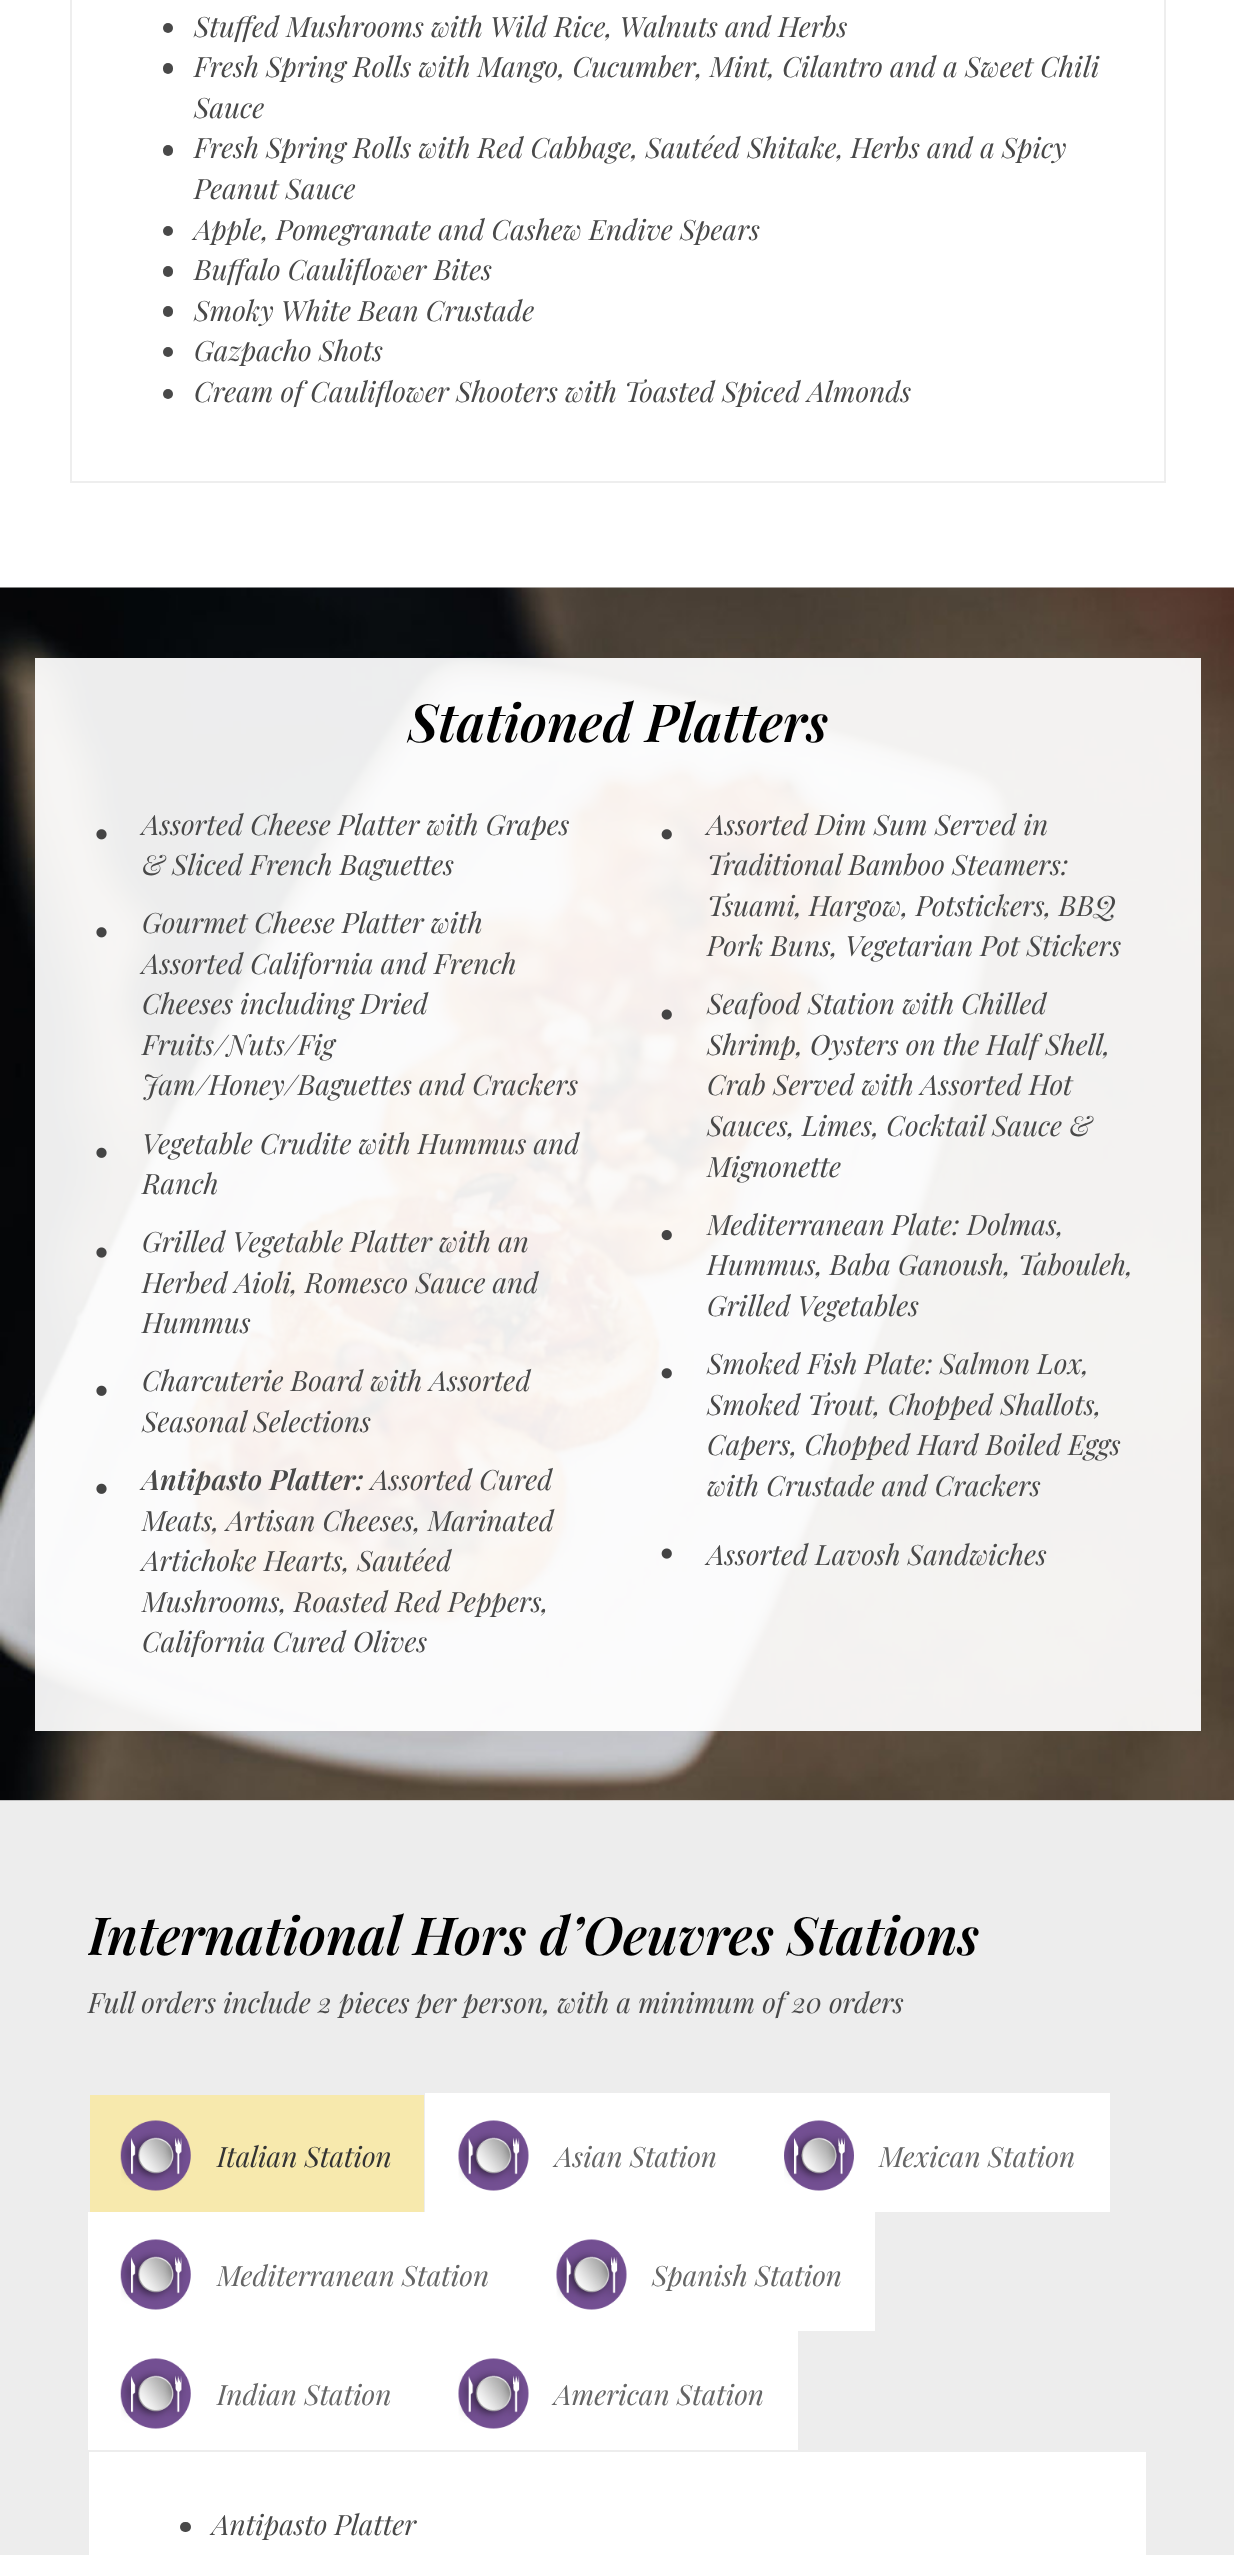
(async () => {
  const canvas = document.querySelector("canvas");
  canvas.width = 1234;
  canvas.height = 2555;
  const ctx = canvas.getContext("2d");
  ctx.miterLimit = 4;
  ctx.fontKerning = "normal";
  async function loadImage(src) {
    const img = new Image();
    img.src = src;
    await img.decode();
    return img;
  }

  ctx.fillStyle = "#ffffff";
  ctx.fillRect(0, 0, 1234, 2555);
  ctx.strokeStyle = "#eeeeee";
  ctx.lineWidth = 2;
  ctx.strokeRect(71, -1, 1094, 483);
  ctx.fillStyle = "#494949";
  ctx.beginPath();
  ctx.arc(168, 28, 5, 0, Math.PI * 2);
  ctx.fill();
  ctx.beginPath();
  ctx.roundRect(163, 63, 10, 11, 5);
  ctx.fill();
  ctx.beginPath();
  ctx.roundRect(163, 145, 10, 11, 5);
  ctx.fill();
  ctx.beginPath();
  ctx.arc(168, 231, 5, 0, Math.PI * 2);
  ctx.fill();
  ctx.beginPath();
  ctx.roundRect(163, 266, 10, 11, 5);
  ctx.fill();
  ctx.beginPath();
  ctx.roundRect(163, 306, 10, 11, 5);
  ctx.fill();
  ctx.beginPath();
  ctx.arc(168, 352, 5, 0, Math.PI * 2);
  ctx.fill();
  ctx.beginPath();
  ctx.arc(168, 394, 5, 0, Math.PI * 2);
  ctx.fill();
  ctx.drawImage(await loadImage("img/1.png"), 0, 587, 1234, 1214);
  ctx.fillStyle = "rgba(255, 255, 255, 0.93)";
  ctx.fillRect(35, 658, 1166, 1073);
  ctx.drawImage(await loadImage("img/2.png"), 96, 829, 11, 11);
  ctx.drawImage(await loadImage("img/3.png"), 96, 927, 11, 11);
  ctx.drawImage(await loadImage("img/4.png"), 96, 1147, 11, 11);
  ctx.drawImage(await loadImage("img/5.png"), 96, 1247, 11, 11);
  ctx.drawImage(await loadImage("img/6.png"), 96, 1385, 11, 11);
  ctx.drawImage(await loadImage("img/7.png"), 96, 1483, 11, 11);
  ctx.drawImage(await loadImage("img/8.png"), 661, 829, 11, 11);
  ctx.drawImage(await loadImage("img/9.png"), 661, 1009, 11, 11);
  ctx.drawImage(await loadImage("img/10.png"), 661, 1230, 11, 11);
  ctx.drawImage(await loadImage("img/11.png"), 661, 1368, 11, 11);
  ctx.drawImage(await loadImage("img/12.png"), 661, 1548, 11, 11);
  ctx.fillStyle = "#ededed";
  ctx.fillRect(0, 1801, 1234, 754);
  ctx.fillStyle = "#f7e9ad";
  ctx.fillRect(90, 2095, 334, 117);
  ctx.drawImage(await loadImage("img/13.png"), 120, 2120, 71, 71);
  ctx.fillStyle = "#ffffff";
  ctx.fillRect(425, 2093, 685, 119);
  ctx.drawImage(await loadImage("img/14.png"), 458, 2120, 71, 71);
  ctx.drawImage(await loadImage("img/15.png"), 784, 2120, 70, 71);
  ctx.fillRect(88, 2212, 787, 119);
  ctx.drawImage(await loadImage("img/16.png"), 120, 2239, 71, 71);
  ctx.drawImage(await loadImage("img/17.png"), 556, 2239, 71, 71);
  ctx.fillRect(88, 2331, 710, 119);
  ctx.drawImage(await loadImage("img/16.png"), 120, 2358, 71, 71);
  ctx.drawImage(await loadImage("img/14.png"), 458, 2358, 71, 71);
  ctx.fillRect(89, 2452, 1057, 103);
  ctx.fillStyle = "#494949";
  ctx.beginPath();
  ctx.roundRect(180, 2522, 11, 10, 5);
  ctx.fill();
  ctx.font = "italic 28px Playfair Display";
  for (const [text, x, y] of [
    ["Stuffed Mushrooms with Wild Rice, Walnuts and Herbs", 194, 37],
    ["Fresh Spring Rolls with Mango, Cucumber, Mint, Cilantro and a Sweet Chili", 194, 77],
    ["Sauce", 194, 118],
    ["Fresh Spring Rolls with Red Cabbage, Sautéed Shitake, Herbs and a Spicy", 194, 158],
    ["Peanut Sauce", 194, 199],
    ["Apple, Pomegranate and Cashew Endive Spears", 194, 240],
    ["Buffalo Cauliflower Bites", 194, 280],
    ["Smoky White Bean Crustade", 194, 321],
    ["Gazpacho Shots", 194, 361],
    ["Cream of Cauliflower Shooters with Toasted Spiced Almonds", 194, 402],
  ]) {
    ctx.fillText(text, x, y);
  }
  ctx.font = "italic 600 52.5px Playfair Display";
  ctx.fillStyle = "#000000";
  ctx.fillText("Stationed Platters", 408, 742);
  ctx.font = "italic 28px Playfair Display";
  ctx.fillStyle = "#494949";
  for (const [text, x, y] of [
    ["Assorted Cheese Platter with Grapes", 142, 835],
    ["& Sliced French Baguettes", 142, 875],
    ["Gourmet Cheese Platter with", 142, 933],
    ["Assorted California and French", 142, 974],
    ["Cheeses including Dried", 142, 1014],
    ["Fruits/Nuts/Fig", 142, 1055],
    ["Jam/Honey/Baguettes and Crackers", 142, 1095],
    ["Vegetable Crudite with Hummus and", 142, 1154],
    ["Ranch", 142, 1194],
    ["Grilled Vegetable Platter with an", 142, 1252],
    ["Herbed Aioli, Romesco Sauce and", 142, 1293],
    ["Hummus", 142, 1333],
    ["Charcuterie Board with Assorted", 142, 1391],
    ["Seasonal Selections", 142, 1432],
  ]) {
    ctx.fillText(text, x, y);
  }
  ctx.font = "italic 600 28px Playfair Display";
  ctx.fillText("Antipasto Platter:", 142, 1490);
  ctx.font = "italic 28px Playfair Display";
  for (const [text, x, y] of [
    ["Assorted Cured", 371, 1490],
    ["Meats, Artisan Cheeses, Marinated", 142, 1531],
    ["Artichoke Hearts, Sautéed", 142, 1571],
    ["Mushrooms, Roasted Red Peppers,", 142, 1612],
    ["California Cured Olives", 142, 1652],
    ["Assorted Dim Sum Served in", 707, 835],
    ["Traditional Bamboo Steamers:", 707, 875],
    ["Tsuami, Hargow, Potstickers, BBQ", 707, 916],
    ["Pork Buns, Vegetarian Pot Stickers", 707, 956],
    ["Seafood Station with Chilled", 707, 1014],
    ["Shrimp, Oysters on the Half Shell,", 707, 1055],
    ["Crab Served with Assorted Hot", 707, 1095],
    ["Sauces, Limes, Cocktail Sauce &", 707, 1136],
    ["Mignonette", 707, 1177],
    ["Mediterranean Plate: Dolmas,", 707, 1235],
    ["Hummus, Baba Ganoush, Tabouleh,", 707, 1275],
    ["Grilled Vegetables", 707, 1316],
    ["Smoked Fish Plate: Salmon Lox,", 707, 1374],
    ["Smoked Trout, Chopped Shallots,", 707, 1415],
    ["Capers, Chopped Hard Boiled Eggs", 707, 1455],
    ["with Crustade and Crackers", 707, 1496],
    ["Assorted Lavosh Sandwiches", 707, 1565],
  ]) {
    ctx.fillText(text, x, y);
  }
  ctx.save();
  ctx.beginPath();
  ctx.rect(88, 1888, 1060, 135);
  ctx.clip();
  ctx.font = "italic 600 52.5px Playfair Display";
  ctx.fillStyle = "#000000";
  ctx.fillText("International Hors d’Oeuvres Stations", 88, 1955);
  ctx.restore();
  ctx.fillText("Full orders include 2 pieces per person, with a minimum of 20 orders", 88, 2013);
  ctx.fillStyle = "#333333";
  ctx.fillText("Italian Station", 217, 2167);
  ctx.fillStyle = "#666666";
  for (const [text, x, y] of [
    ["Asian Station", 555, 2167],
    ["Mexican Station", 879, 2167],
    ["Mediterranean Station", 217, 2286],
    ["Spanish Station", 652, 2286],
    ["Indian Station", 217, 2405],
    ["American Station", 554, 2405],
  ]) {
    ctx.fillText(text, x, y);
  }
  ctx.fillStyle = "#494949";
  ctx.fillText("Antipasto Platter", 212, 2535);
})();
